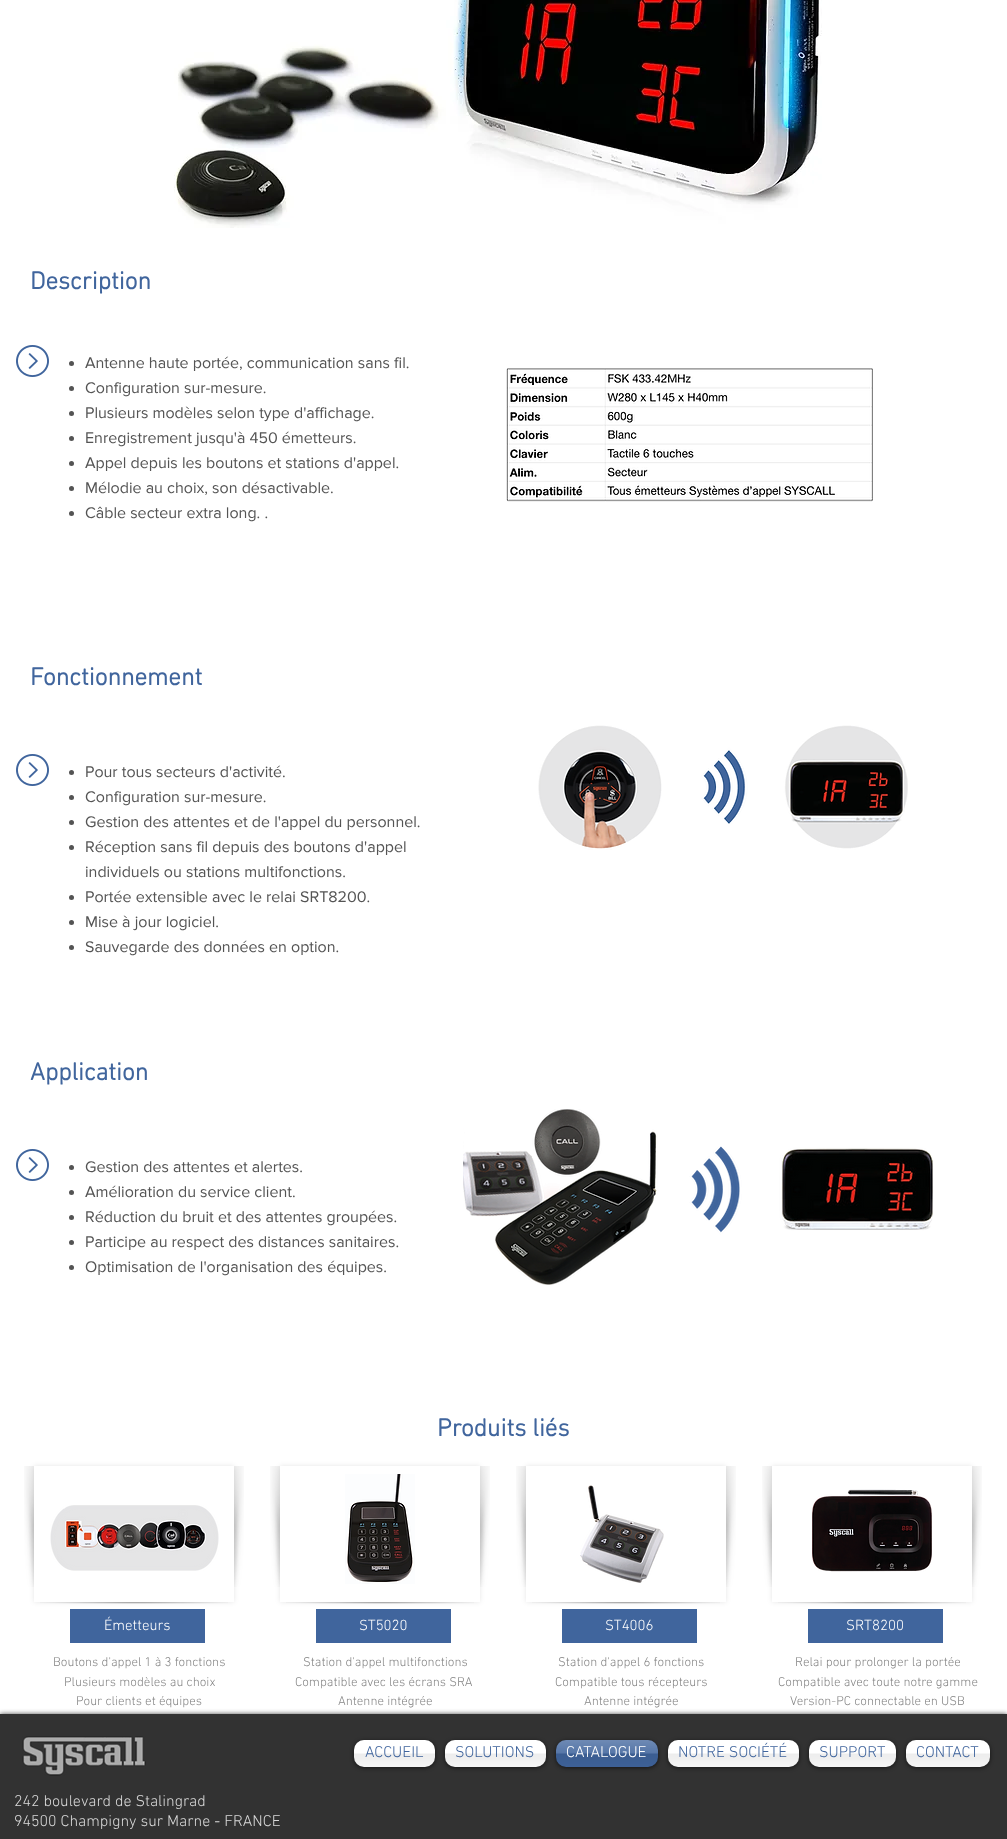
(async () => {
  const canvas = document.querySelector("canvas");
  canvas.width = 1007;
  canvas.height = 1839;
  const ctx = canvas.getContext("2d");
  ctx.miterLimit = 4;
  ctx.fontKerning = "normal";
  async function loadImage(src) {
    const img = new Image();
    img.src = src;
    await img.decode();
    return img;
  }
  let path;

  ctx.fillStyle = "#ffffff";
  ctx.fillRect(0, 0, 1007, 1839);
  ctx.drawImage(await loadImage("img/1.png"), 174, 0, 648, 228);
  ctx.drawImage(await loadImage("img/2.png"), 16, 345, 33, 32);
  ctx.fillStyle = "#545454";
  ctx.beginPath();
  ctx.arc(71.5, 363.5, 2.5, 0, Math.PI * 2);
  ctx.fill();
  ctx.beginPath();
  ctx.arc(71.5, 388.5, 2.5, 0, Math.PI * 2);
  ctx.fill();
  ctx.beginPath();
  ctx.arc(71.5, 413.5, 2.5, 0, Math.PI * 2);
  ctx.fill();
  ctx.beginPath();
  ctx.arc(71.5, 438.5, 2.5, 0, Math.PI * 2);
  ctx.fill();
  ctx.beginPath();
  ctx.arc(71.5, 463.5, 2.5, 0, Math.PI * 2);
  ctx.fill();
  ctx.beginPath();
  ctx.arc(71.5, 488.5, 2.5, 0, Math.PI * 2);
  ctx.fill();
  ctx.beginPath();
  ctx.arc(71.5, 513.5, 2.5, 0, Math.PI * 2);
  ctx.fill();
  ctx.drawImage(await loadImage("img/3.png"), 506, 368, 367, 134);
  ctx.drawImage(await loadImage("img/2.png"), 16, 754, 33, 32);
  ctx.beginPath();
  ctx.arc(71.5, 772.5, 2.5, 0, Math.PI * 2);
  ctx.fill();
  ctx.beginPath();
  ctx.arc(71.5, 797.5, 2.5, 0, Math.PI * 2);
  ctx.fill();
  ctx.beginPath();
  ctx.arc(71.5, 822.5, 2.5, 0, Math.PI * 2);
  ctx.fill();
  ctx.beginPath();
  ctx.arc(71.5, 847.5, 2.5, 0, Math.PI * 2);
  ctx.fill();
  ctx.beginPath();
  ctx.arc(71.5, 897.5, 2.5, 0, Math.PI * 2);
  ctx.fill();
  ctx.beginPath();
  ctx.arc(71.5, 922.5, 2.5, 0, Math.PI * 2);
  ctx.fill();
  ctx.beginPath();
  ctx.arc(71.5, 947.5, 2.5, 0, Math.PI * 2);
  ctx.fill();
  ctx.drawImage(await loadImage("img/4.png"), 538, 725, 370, 125);
  ctx.drawImage(await loadImage("img/2.png"), 16, 1149, 33, 32);
  ctx.beginPath();
  ctx.arc(71.5, 1167.5, 2.5, 0, Math.PI * 2);
  ctx.fill();
  ctx.beginPath();
  ctx.arc(71.5, 1192.5, 2.5, 0, Math.PI * 2);
  ctx.fill();
  ctx.beginPath();
  ctx.arc(71.5, 1217.5, 2.5, 0, Math.PI * 2);
  ctx.fill();
  ctx.beginPath();
  ctx.arc(71.5, 1242.5, 2.5, 0, Math.PI * 2);
  ctx.fill();
  ctx.beginPath();
  ctx.arc(71.5, 1267.5, 2.5, 0, Math.PI * 2);
  ctx.fill();
  ctx.drawImage(await loadImage("img/5.png"), 463, 1109, 470, 176);
  ctx.save();
  path = new Path2D("M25 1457H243V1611H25ZM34 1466H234V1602H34Z");
  ctx.clip(path, "evenodd");
  ctx.fillStyle = "rgba(0, 0, 0, 0.1)";
  ctx.filter = "blur(2.5px)";
  ctx.beginPath();
  ctx.rect(34, 1466, 200, 136);
  ctx.fill();
  ctx.filter = "none";
  ctx.restore();
  ctx.drawImage(await loadImage("img/6.png"), 50, 1505, 169, 66);
  ctx.drawImage(await loadImage("img/7.png"), 40, 1602, 188, 2);
  ctx.drawImage(await loadImage("img/8.png"), 24, 1466, 10, 121);
  ctx.drawImage(await loadImage("img/9.png"), 234, 1466, 10, 121);
  ctx.fillStyle = "#40659d";
  ctx.fillRect(70, 1609, 135, 34);
  ctx.save();
  path = new Path2D("M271 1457H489V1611H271ZM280 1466H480V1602H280Z");
  ctx.clip(path, "evenodd");
  ctx.fillStyle = "rgba(0, 0, 0, 0.1)";
  ctx.filter = "blur(2.5px)";
  ctx.beginPath();
  ctx.rect(280, 1466, 200, 136);
  ctx.fill();
  ctx.filter = "none";
  ctx.restore();
  ctx.drawImage(await loadImage("img/10.png"), 345, 1474, 70, 110);
  ctx.drawImage(await loadImage("img/7.png"), 286, 1602, 188, 2);
  ctx.drawImage(await loadImage("img/8.png"), 270, 1466, 10, 121);
  ctx.drawImage(await loadImage("img/9.png"), 480, 1466, 10, 121);
  ctx.fillRect(316, 1609, 135, 34);
  ctx.save();
  path = new Path2D("M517 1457H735V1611H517ZM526 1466H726V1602H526Z");
  ctx.clip(path, "evenodd");
  ctx.fillStyle = "rgba(0, 0, 0, 0.1)";
  ctx.filter = "blur(2.5px)";
  ctx.beginPath();
  ctx.rect(526, 1466, 200, 136);
  ctx.fill();
  ctx.filter = "none";
  ctx.restore();
  ctx.drawImage(await loadImage("img/11.png"), 580, 1485, 84, 98);
  ctx.drawImage(await loadImage("img/7.png"), 532, 1602, 188, 2);
  ctx.drawImage(await loadImage("img/8.png"), 516, 1466, 10, 121);
  ctx.drawImage(await loadImage("img/9.png"), 726, 1466, 10, 121);
  ctx.fillRect(562, 1609, 135, 34);
  ctx.save();
  path = new Path2D("M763 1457H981V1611H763ZM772 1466H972V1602H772Z");
  ctx.clip(path, "evenodd");
  ctx.fillStyle = "rgba(0, 0, 0, 0.1)";
  ctx.filter = "blur(2.5px)";
  ctx.beginPath();
  ctx.rect(772, 1466, 200, 136);
  ctx.fill();
  ctx.filter = "none";
  ctx.restore();
  ctx.drawImage(await loadImage("img/12.png"), 812, 1489, 120, 83);
  ctx.drawImage(await loadImage("img/7.png"), 778, 1602, 188, 2);
  ctx.drawImage(await loadImage("img/8.png"), 762, 1466, 10, 121);
  ctx.drawImage(await loadImage("img/9.png"), 972, 1466, 10, 121);
  ctx.fillRect(808, 1609, 135, 34);
  ctx.fillStyle = "rgba(0, 0, 0, 0.7)";
  ctx.filter = "blur(2.5px)";
  ctx.beginPath();
  ctx.rect(0, 1714, 1007, 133);
  ctx.fill();
  ctx.filter = "none";
  ctx.fillStyle = "#323232";
  ctx.fillRect(0, 1714, 1007, 125);
  ctx.drawImage(await loadImage("img/13.png"), 22, 1736, 124, 40);
  ctx.fillStyle = "rgba(0, 0, 0, 0.6)";
  ctx.filter = "blur(2px)";
  ctx.beginPath();
  ctx.roundRect(354, 1741, 81, 27, 10);
  ctx.fill();
  ctx.filter = "none";
  ctx.fillStyle = "#ffffff";
  ctx.beginPath();
  ctx.roundRect(354, 1740, 81, 27, 10);
  ctx.fill();
  ctx.drawImage(await loadImage("img/14.png"), 354, 1740, 81, 27);
  ctx.fillStyle = "rgba(0, 0, 0, 0.6)";
  ctx.filter = "blur(2px)";
  ctx.beginPath();
  ctx.roundRect(445, 1741, 101, 27, 10);
  ctx.fill();
  ctx.filter = "none";
  ctx.fillStyle = "#ffffff";
  ctx.beginPath();
  ctx.roundRect(445, 1740, 101, 27, 10);
  ctx.fill();
  ctx.drawImage(await loadImage("img/15.png"), 445, 1740, 101, 27);
  ctx.fillStyle = "rgba(0, 0, 0, 0.6)";
  ctx.filter = "blur(2px)";
  ctx.beginPath();
  ctx.roundRect(556, 1741, 102, 27, 10);
  ctx.fill();
  ctx.filter = "none";
  ctx.fillStyle = "#40659d";
  ctx.beginPath();
  ctx.roundRect(556, 1740, 102, 27, 10);
  ctx.fill();
  ctx.drawImage(await loadImage("img/16.png"), 556, 1740, 102, 27);
  ctx.fillStyle = "rgba(0, 0, 0, 0.6)";
  ctx.filter = "blur(2px)";
  ctx.beginPath();
  ctx.roundRect(668, 1741, 131, 27, 10);
  ctx.fill();
  ctx.filter = "none";
  ctx.fillStyle = "#ffffff";
  ctx.beginPath();
  ctx.roundRect(668, 1740, 131, 27, 10);
  ctx.fill();
  ctx.drawImage(await loadImage("img/17.png"), 668, 1740, 131, 27);
  ctx.fillStyle = "rgba(0, 0, 0, 0.6)";
  ctx.filter = "blur(2px)";
  ctx.beginPath();
  ctx.roundRect(809, 1741, 87, 27, 10);
  ctx.fill();
  ctx.filter = "none";
  ctx.fillStyle = "#ffffff";
  ctx.beginPath();
  ctx.roundRect(809, 1740, 87, 27, 10);
  ctx.fill();
  ctx.drawImage(await loadImage("img/18.png"), 809, 1740, 87, 27);
  ctx.fillStyle = "rgba(0, 0, 0, 0.6)";
  ctx.filter = "blur(2px)";
  ctx.beginPath();
  ctx.roundRect(906, 1741, 84, 27, 10);
  ctx.fill();
  ctx.filter = "none";
  ctx.fillStyle = "#ffffff";
  ctx.beginPath();
  ctx.roundRect(906, 1740, 84, 27, 10);
  ctx.fill();
  ctx.drawImage(await loadImage("img/19.png"), 906, 1740, 84, 27);
  ctx.font = "bold 25px 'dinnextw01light'";
  ctx.fillStyle = "#40659d";
  ctx.fillText("Description", 30, 289);
  ctx.font = "16px 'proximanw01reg'";
  ctx.fillStyle = "#545454";
  for (const [text, x, y] of [
    ["Antenne haute portée, communication sans fil.", 85, 368],
    ["Configuration sur-mesure.", 85, 393],
    ["Plusieurs modèles selon type d'affichage.", 85, 418],
    ["Enregistrement jusqu'à 450 émetteurs.", 85, 443],
    ["Appel depuis les boutons et stations d'appel.", 85, 468],
    ["Mélodie au choix, son désactivable.", 85, 493],
    ["Câble secteur extra long. .", 85, 518],
  ]) {
    ctx.fillText(text, x, y);
  }
  ctx.font = "bold 25px 'dinnextw01light'";
  ctx.fillStyle = "#40659d";
  ctx.fillText("Fonctionnement", 30, 685);
  ctx.font = "16px 'proximanw01reg'";
  ctx.fillStyle = "#545454";
  for (const [text, x, y] of [
    ["Pour tous secteurs d'activité.", 85, 777],
    ["Configuration sur-mesure.", 85, 802],
    ["Gestion des attentes et de l'appel du personnel.", 85, 827],
    ["Réception sans fil depuis des boutons d'appel", 85, 852],
    ["individuels ou stations multifonctions.", 85, 877],
    ["Portée extensible avec le relai SRT8200.", 85, 902],
    ["Mise à jour logiciel.", 85, 927],
    ["Sauvegarde des données en option.", 85, 952],
  ]) {
    ctx.fillText(text, x, y);
  }
  ctx.font = "bold 25px 'dinnextw01light'";
  ctx.fillStyle = "#40659d";
  ctx.fillText("Application", 30, 1080);
  ctx.font = "16px 'proximanw01reg'";
  ctx.fillStyle = "#545454";
  for (const [text, x, y] of [
    ["Gestion des attentes et alertes.", 85, 1172],
    ["Amélioration du service client.", 85, 1197],
    ["Réduction du bruit et des attentes groupées.", 85, 1222],
    ["Participe au respect des distances sanitaires.", 85, 1247],
    ["Optimisation de l'organisation des équipes.", 85, 1272],
  ]) {
    ctx.fillText(text, x, y);
  }
  ctx.font = "bold 25px 'dinnextw01light'";
  ctx.fillStyle = "#40659d";
  ctx.fillText("Produits liés", 437, 1436);
  ctx.font = "300 15px 'dinnextw01light'";
  ctx.fillStyle = "#ffffff";
  ctx.fillText("Émetteurs", 104, 1630);
  ctx.font = "300 13px 'dinnextw01light'";
  ctx.fillStyle = "#858585";
  for (const [text, x, y] of [
    ["Boutons d'appel 1 à 3 fonctions", 53, 1666],
    ["Plusieurs modèles au choix", 64, 1686],
    ["Pour clients et équipes", 76, 1705],
  ]) {
    ctx.fillText(text, x, y);
  }
  ctx.font = "300 15px 'dinnextw01light'";
  ctx.fillStyle = "#ffffff";
  ctx.fillText("ST5020", 359, 1630);
  ctx.font = "300 13px 'dinnextw01light'";
  ctx.fillStyle = "#858585";
  for (const [text, x, y] of [
    ["Station d'appel multifonctions", 303, 1666],
    ["Compatible avec les écrans SRA", 295, 1686],
    ["Antenne intégrée", 338, 1705],
  ]) {
    ctx.fillText(text, x, y);
  }
  ctx.font = "300 15px 'dinnextw01light'";
  ctx.fillStyle = "#ffffff";
  ctx.fillText("ST4006", 605, 1630);
  ctx.font = "300 13px 'dinnextw01light'";
  ctx.fillStyle = "#858585";
  for (const [text, x, y] of [
    ["Station d'appel 6 fonctions", 558, 1666],
    ["Compatible tous récepteurs", 555, 1686],
    ["Antenne intégrée", 584, 1705],
  ]) {
    ctx.fillText(text, x, y);
  }
  ctx.font = "300 15px 'dinnextw01light'";
  ctx.fillStyle = "#ffffff";
  ctx.fillText("SRT8200", 846, 1630);
  ctx.font = "300 13px 'dinnextw01light'";
  ctx.fillStyle = "#858585";
  for (const [text, x, y] of [
    ["Relai pour prolonger la portée", 795, 1666],
    ["Compatible avec toute notre gamme", 778, 1686],
    ["Version-PC connectable en USB", 790, 1705],
  ]) {
    ctx.fillText(text, x, y);
  }
  ctx.font = "300 16px 'dinnextw01light'";
  ctx.fillStyle = "#40659d";
  ctx.fillText("ACCUEIL", 365, 1757);
  ctx.fillText("SOLUTIONS", 455, 1757);
  ctx.fillStyle = "#ffffff";
  ctx.fillText("CATALOGUE", 566, 1757);
  ctx.fillStyle = "#40659d";
  for (const [text, x, y] of [
    ["NOTRE SOCIÉTÉ", 678, 1757],
    ["SUPPORT", 819, 1757],
    ["CONTACT", 916, 1757],
  ]) {
    ctx.fillText(text, x, y);
  }
  ctx.fillStyle = "#d9d9d9";
  ctx.fillText("242 boulevard de Stalingrad", 14, 1806);
  ctx.fillText("94500 Champigny sur Marne - FRANCE", 14, 1826);
})();
